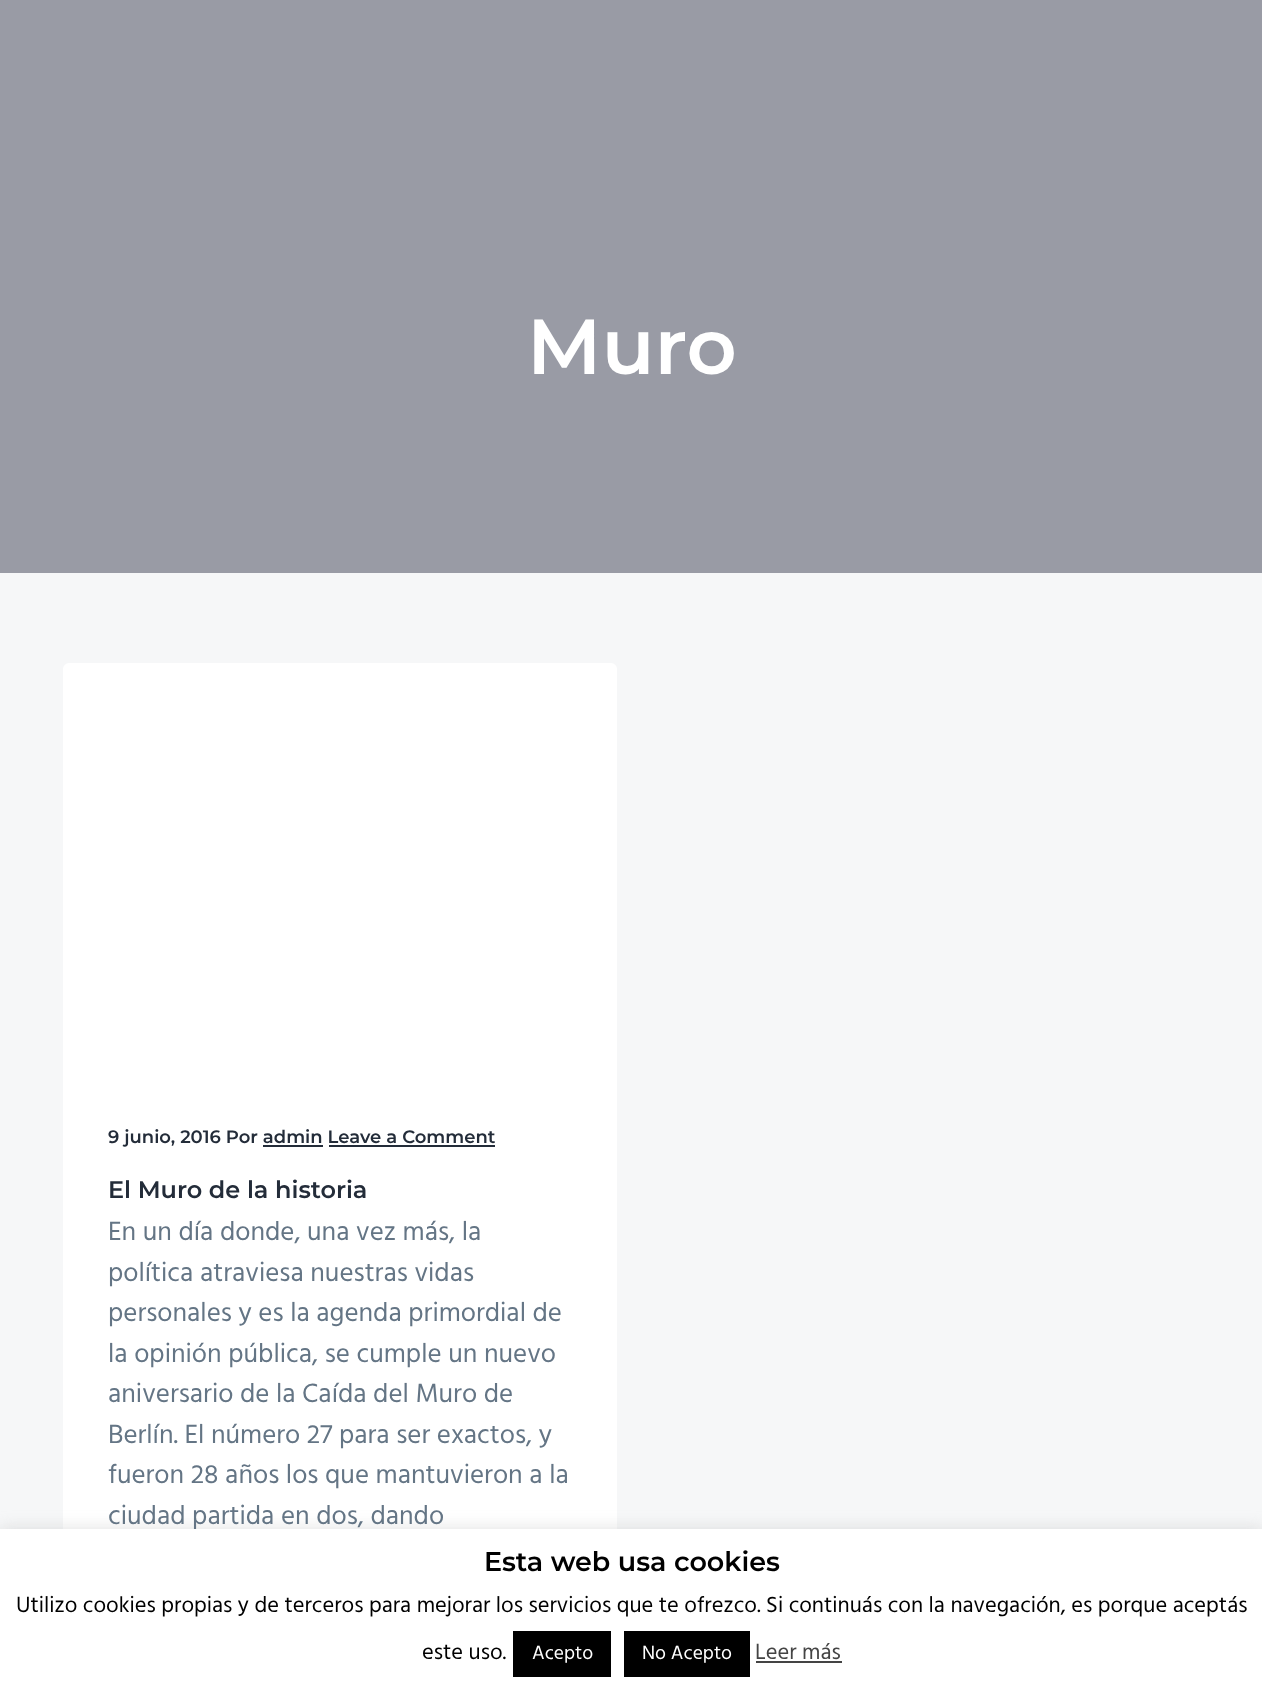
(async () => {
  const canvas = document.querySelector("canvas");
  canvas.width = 1262;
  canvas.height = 1694;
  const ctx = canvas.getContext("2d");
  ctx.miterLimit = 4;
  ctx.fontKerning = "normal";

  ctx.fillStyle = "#f6f7f8";
  ctx.fillRect(0, 0, 1262, 1694);
  ctx.fillStyle = "#999ba5";
  ctx.fillRect(0, 0, 1262, 573);
  ctx.fillStyle = "#ffffff";
  ctx.beginPath();
  ctx.roundRect(63, 663, 554, 989, 6);
  ctx.fill();
  ctx.fillStyle = "#232c39";
  ctx.fillRect(263, 1145, 60, 2);
  ctx.fillRect(329, 1145, 166, 2);
  ctx.fillStyle = "rgba(172, 171, 171, 0.3)";
  ctx.filter = "blur(7.5px)";
  ctx.beginPath();
  ctx.rect(0, 1527, 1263, 167);
  ctx.fill();
  ctx.filter = "none";
  ctx.font = "100 78px Montserrat";
  ctx.fillStyle = "#ffffff";
  ctx.fillText("Muro", 527, 374);
  ctx.font = "100 18px Montserrat";
  ctx.fillStyle = "#232c39";
  ctx.fillText("9 junio, 2016 Por admin Leave a Comment", 108, 1143);
  ctx.font = "100 24px Montserrat";
  ctx.fillText("El Muro de la historia", 108, 1198);
  ctx.font = "27px Hind";
  ctx.fillStyle = "#647585";
  for (const [text, x, y] of [
    ["En un día donde, una vez más, la", 108, 1240],
    ["política atraviesa nuestras vidas", 108, 1281],
    ["personales y es la agenda primordial de", 108, 1321],
    ["la opinión pública, se cumple un nuevo", 108, 1362],
    ["aniversario de la Caída del Muro de", 108, 1402],
    ["Berlín. El número 27 para ser exactos, y", 108, 1443],
    ["fueron 28 años los que mantuvieron a la", 108, 1483],
    ["ciudad partida en dos, dando", 108, 1524],
  ]) {
    ctx.fillText(text, x, y);
  }
  ctx.fillStyle = "#ffffff";
  ctx.fillRect(0, 1529, 1262, 165);
  ctx.font = "100 27px Montserrat";
  ctx.fillStyle = "#000000";
  ctx.fillText("Esta web usa cookies", 484, 1571);
  ctx.font = "22.5px Hind";
  ctx.fillText("Utilizo cookies propias y de terceros para mejorar los servicios que te ofrezco. Si continuás con la navegación, es porque aceptás", 16, 1612);
  ctx.fillText("este uso.", 422, 1659);
  ctx.fillRect(513, 1631, 98, 46);
  ctx.font = "19.5px Hind";
  ctx.fillStyle = "#ffffff";
  ctx.fillText("Acepto", 532, 1659);
  ctx.fillStyle = "#000000";
  ctx.fillRect(624, 1631, 126, 46);
  ctx.fillStyle = "#ffffff";
  ctx.fillText("No Acepto", 642, 1659);
  ctx.font = "22.5px Hind";
  ctx.fillStyle = "#444444";
  ctx.fillText("Leer más", 755, 1659);
  ctx.fillRect(756, 1661, 86, 2);
})();
